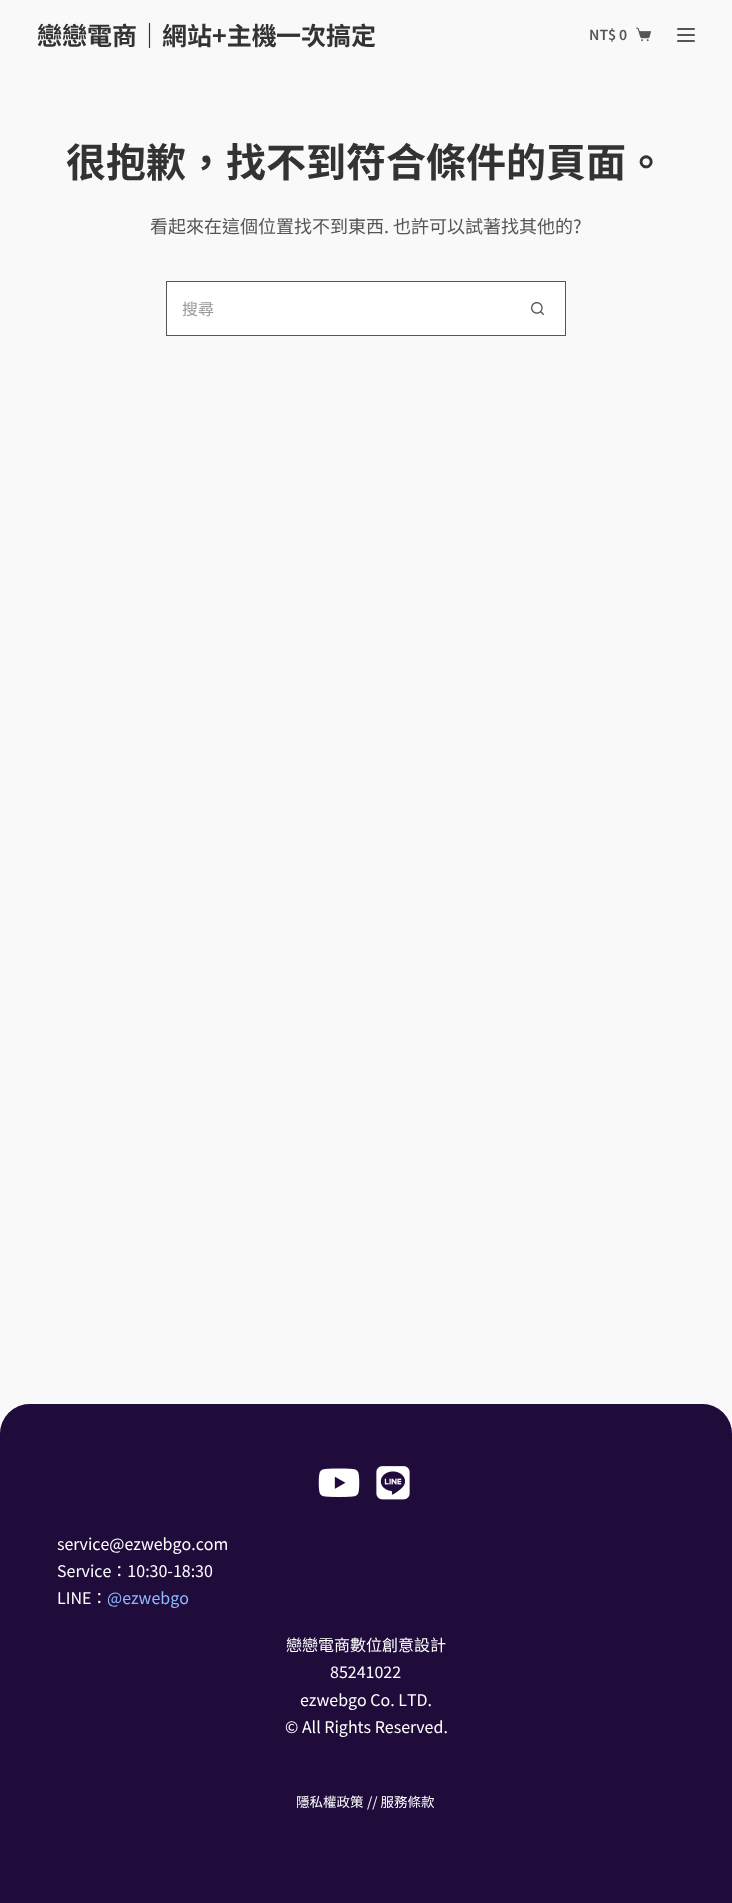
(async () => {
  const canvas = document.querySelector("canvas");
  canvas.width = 732;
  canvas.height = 1903;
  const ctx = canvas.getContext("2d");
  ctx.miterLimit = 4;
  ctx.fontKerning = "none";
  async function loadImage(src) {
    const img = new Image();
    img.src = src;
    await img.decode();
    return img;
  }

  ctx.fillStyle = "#f9f9f9";
  ctx.fillRect(0, 0, 732, 1903);
  ctx.drawImage(await loadImage("img/1.png"), 636, 27, 15, 15);
  ctx.fillStyle = "#555555";
  ctx.beginPath();
  ctx.roundRect(677, 28, 18, 2, 1);
  ctx.fill();
  ctx.beginPath();
  ctx.roundRect(677, 34, 18, 2, 1);
  ctx.fill();
  ctx.beginPath();
  ctx.roundRect(677, 40, 18, 2, 1);
  ctx.fill();
  for (const [x, y, w, h, color] of [
    [167, 282, 398, 53, "#ffffff"],
    [166, 281, 400, 1, "#555555"],
    [166, 335, 345, 1, "#555555"],
    [166, 281, 1, 55, "#555555"],
    [565, 281, 1, 55, "#555555"],
    [511, 335, 55, 1, "#555555"],
  ]) {
    ctx.fillStyle = color;
    ctx.fillRect(x, y, w, h);
  }
  ctx.drawImage(await loadImage("img/2.png"), 531, 302, 13, 13);
  ctx.fillStyle = "#4c1d8c";
  ctx.beginPath();
  ctx.roundRect(0, 1404, 732, 499, [30, 30, 0, 0]);
  ctx.fill();
  ctx.fillStyle = "rgba(0, 0, 0, 0.58)";
  ctx.beginPath();
  ctx.roundRect(0, 1404, 732, 499, [30, 30, 0, 0]);
  ctx.fill();
  ctx.drawImage(await loadImage("img/3.png"), 318, 1468, 42, 29);
  ctx.drawImage(await loadImage("img/4.png"), 376, 1466, 34, 34);
  ctx.font = "bold 25px Noto Sans TC";
  ctx.fillStyle = "#333333";
  ctx.fillText("戀戀", 37, 45);
  ctx.font = "bold 25px 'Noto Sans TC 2'";
  ctx.fillText("電", 87, 45);
  ctx.font = "bold 25px Noto Sans TC";
  ctx.fillText("商｜", 112, 45);
  ctx.font = "bold 25px 'Noto Sans TC 2'";
  ctx.fillText("網", 162, 45);
  ctx.font = "bold 25px Noto Sans TC";
  ctx.fillText("站+主機", 187, 45);
  ctx.font = "bold 25px 'Noto Sans TC 2'";
  ctx.fillText("一", 276, 45);
  ctx.font = "bold 25px Noto Sans TC";
  ctx.fillText("次搞定", 301, 45);
  ctx.font = "600 14px Noto Sans TC";
  ctx.fillStyle = "#555555";
  ctx.fillText("NT$", 589, 40);
  ctx.fillText("0", 619, 40);
  ctx.font = "bold 40px Noto Sans TC";
  ctx.fillStyle = "#333333";
  ctx.fillText("很抱歉", 66, 177);
  ctx.font = "bold 40px 'Noto Sans TC 2'";
  ctx.fillText("，", 186, 177);
  ctx.font = "bold 40px Noto Sans TC";
  ctx.fillText("找", 226, 177);
  ctx.font = "bold 40px 'Noto Sans TC 2'";
  ctx.fillText("不到", 266, 177);
  ctx.font = "bold 40px Noto Sans TC";
  ctx.fillText("符合條件", 346, 177);
  ctx.font = "bold 40px 'Noto Sans TC 2'";
  ctx.fillText("的頁", 506, 177);
  ctx.font = "bold 40px Noto Sans TC";
  ctx.fillText("面", 586, 177);
  ctx.font = "bold 40px 'Noto Sans TC 2'";
  ctx.fillText("。", 626, 177);
  ctx.font = "18px Noto Sans CJK TC";
  ctx.fillStyle = "#555555";
  ctx.fillText("看起來", 150, 233);
  ctx.font = "18px Noto Sans TC";
  ctx.fillText("在", 204, 233);
  ctx.font = "18px Noto Sans CJK TC";
  ctx.fillText("這", 222, 233);
  ctx.font = "18px Noto Sans TC";
  ctx.fillText("個", 240, 233);
  ctx.font = "18px Noto Sans CJK TC";
  ctx.fillText("位置找", 258, 233);
  ctx.font = "18px Noto Sans TC";
  ctx.fillText("不到", 312, 233);
  ctx.font = "18px Noto Sans CJK TC";
  ctx.fillText("東西", 348, 233);
  ctx.font = "18px Noto Sans TC";
  ctx.fillText(".", 384, 233);
  ctx.font = "18px Noto Sans CJK TC";
  ctx.fillText("也許", 393, 233);
  ctx.font = "18px Noto Sans TC";
  ctx.fillText("可以", 429, 233);
  ctx.font = "18px Noto Sans CJK TC";
  ctx.fillText("試著找其他", 465, 233);
  ctx.font = "18px Noto Sans TC";
  ctx.fillText("的?", 555, 233);
  ctx.font = "16px Noto Sans CJK TC";
  ctx.fillStyle = "#999999";
  ctx.fillText("搜尋", 182, 315);
  ctx.font = "16px Noto Sans TC";
  ctx.fillStyle = "#ffffff";
  for (const [text, x, y] of [
    ["service@ezwebgo.com", 57, 1550],
    ["Service：10:30-18:30", 57, 1577],
    ["LINE：", 57, 1604],
  ]) {
    ctx.fillText(text, x, y);
  }
  ctx.fillStyle = "#8ebbff";
  ctx.fillText("@ezwebgo", 107, 1604);
  ctx.font = "16px Noto Sans CJK TC";
  ctx.fillStyle = "#ffffff";
  ctx.fillText("戀戀", 286, 1651);
  ctx.font = "16px Noto Sans TC";
  ctx.fillText("電", 318, 1651);
  ctx.font = "16px Noto Sans CJK TC";
  ctx.fillText("商數位創意設計", 334, 1651);
  ctx.font = "16px Noto Sans TC";
  for (const [text, x, y] of [
    ["85241022", 330, 1678],
    ["ezwebgo Co. LTD.", 300, 1706],
    ["© All Rights Reserved.", 285, 1733],
  ]) {
    ctx.fillText(text, x, y);
  }
  ctx.font = "13.5px Noto Sans CJK TC";
  ctx.fillText("隱私權政策", 296, 1807);
  ctx.font = "13.5px Noto Sans TC";
  ctx.fillText("// 服務條款", 367, 1807);
})();
